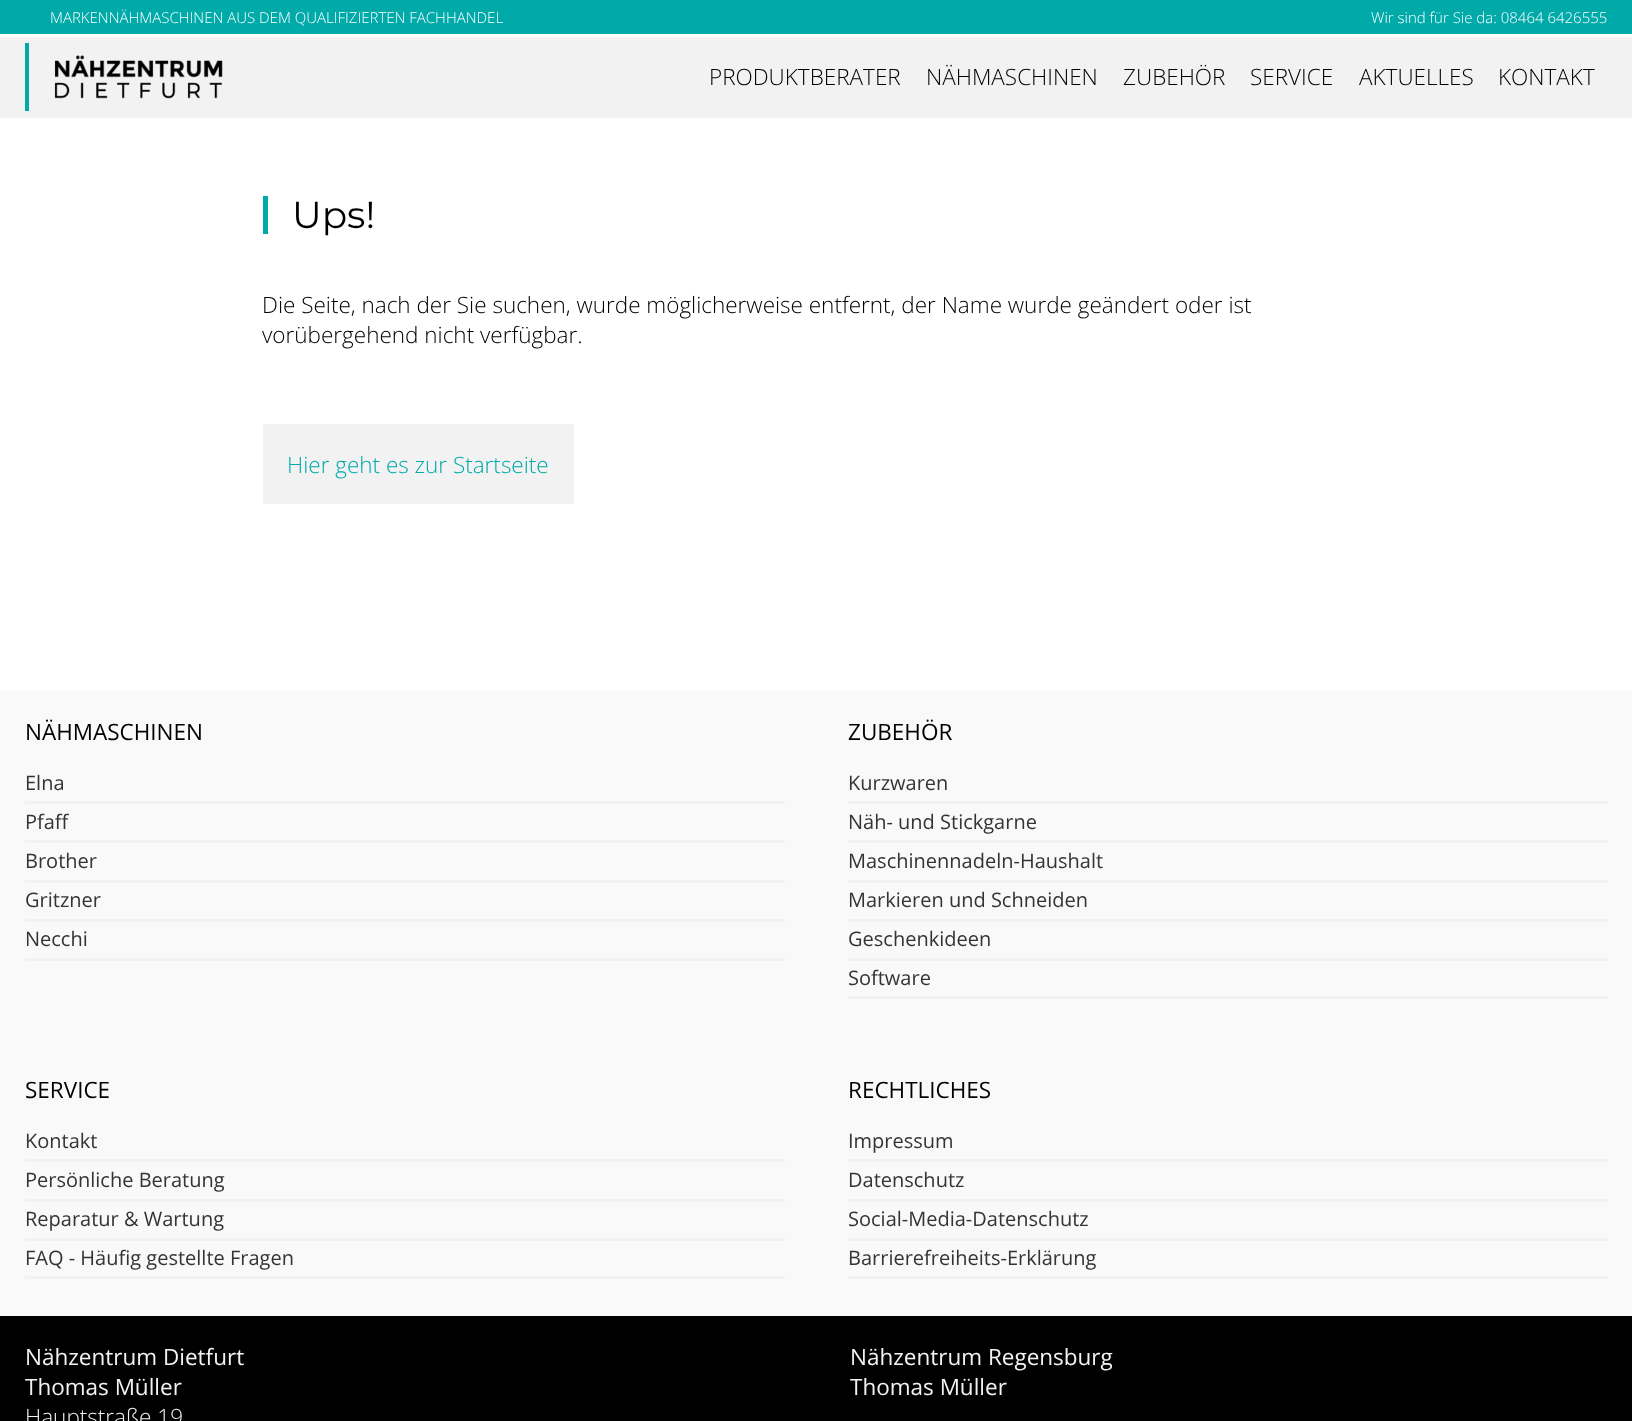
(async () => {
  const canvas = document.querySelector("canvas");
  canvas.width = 1632;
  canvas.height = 1421;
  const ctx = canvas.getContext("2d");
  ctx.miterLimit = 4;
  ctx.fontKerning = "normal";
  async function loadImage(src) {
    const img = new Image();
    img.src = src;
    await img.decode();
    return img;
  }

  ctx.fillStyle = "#ffffff";
  ctx.fillRect(0, 0, 1632, 1421);
  for (const [x, y, w, h, color] of [
    [0, 37, 1632, 81, "#f2f2f2"],
    [0, 0, 1632, 34, "#00aaa9"],
    [25, 43, 4, 68, "#00aaa9"],
  ]) {
    ctx.fillStyle = color;
    ctx.fillRect(x, y, w, h);
  }
  ctx.drawImage(await loadImage("img/1.png"), 54, 55, 169, 44);
  for (const [x, y, w, h, color] of [
    [263, 196, 5, 38, "#00aaa9"],
    [263, 424, 311, 80, "#f2f2f2"],
    [0, 691, 1632, 625, "#f9f9f9"],
    [25, 801, 760, 3, "#f2f2f2"],
    [25, 840, 760, 3, "#f2f2f2"],
    [25, 880, 760, 3, "#f2f2f2"],
    [25, 919, 760, 3, "#f2f2f2"],
    [25, 958, 760, 3, "#f2f2f2"],
    [848, 801, 760, 3, "#f2f2f2"],
    [848, 840, 760, 3, "#f2f2f2"],
    [848, 880, 760, 3, "#f2f2f2"],
    [848, 919, 760, 3, "#f2f2f2"],
    [848, 958, 760, 3, "#f2f2f2"],
    [848, 996, 760, 3, "#f2f2f2"],
    [25, 1159, 760, 3, "#f2f2f2"],
    [25, 1199, 760, 3, "#f2f2f2"],
    [25, 1238, 760, 3, "#f2f2f2"],
    [25, 1276, 760, 3, "#f2f2f2"],
    [848, 1159, 760, 3, "#f2f2f2"],
    [848, 1199, 760, 3, "#f2f2f2"],
    [848, 1238, 760, 3, "#f2f2f2"],
    [848, 1276, 760, 3, "#f2f2f2"],
    [0, 1316, 1632, 105, "#000000"],
  ]) {
    ctx.fillStyle = color;
    ctx.fillRect(x, y, w, h);
  }
  ctx.font = "300 15px Open Sans";
  ctx.fillStyle = "#ffffff";
  ctx.fillText("MARKENNÄHMASCHINEN AUS DEM QUALIFIZIERTEN FACHHANDEL", 50, 23);
  ctx.fillText("Wir sind für Sie da: 08464 6426555", 1371, 23);
  ctx.font = "300 22.5px Open Sans";
  ctx.fillStyle = "#000000";
  for (const [text, x, y] of [
    ["PRODUKTBERATER", 709, 85],
    ["NÄHMASCHINEN", 926, 85],
    ["ZUBEHÖR", 1123, 85],
    ["SERVICE", 1250, 85],
    ["AKTUELLES", 1359, 85],
    ["KONTAKT", 1498, 85],
  ]) {
    ctx.fillText(text, x, y);
  }
  ctx.font = "37.5px Montserrat";
  ctx.fillText("Ups!", 292, 228);
  ctx.font = "300 22.5px Open Sans";
  ctx.fillText("Die Seite, nach der Sie suchen, wurde möglicherweise entfernt, der Name wurde geändert oder ist", 262, 313);
  ctx.fillText("vorübergehend nicht verfügbar.", 262, 343);
  ctx.fillStyle = "#00aaa9";
  ctx.fillText("Hier geht es zur Startseite", 287, 473);
  ctx.font = "22.5px Open Sans";
  ctx.fillStyle = "#000000";
  ctx.fillText("NÄHMASCHINEN", 25, 740);
  ctx.font = "20px Open Sans";
  ctx.fillStyle = "#343434";
  for (const [text, x, y] of [
    ["Elna", 25, 790],
    ["Pfaff", 25, 829],
    ["Brother", 25, 868],
    ["Gritzner", 25, 907],
    ["Necchi", 25, 946],
  ]) {
    ctx.fillText(text, x, y);
  }
  ctx.font = "22.5px Open Sans";
  ctx.fillStyle = "#000000";
  ctx.fillText("ZUBEHÖR", 848, 740);
  ctx.font = "20px Open Sans";
  ctx.fillStyle = "#343434";
  for (const [text, x, y] of [
    ["Kurzwaren", 848, 790],
    ["Näh- und Stickgarne", 848, 829],
    ["Maschinennadeln-Haushalt", 848, 868],
    ["Markieren und Schneiden", 848, 907],
    ["Geschenkideen", 848, 946],
    ["Software", 848, 985],
  ]) {
    ctx.fillText(text, x, y);
  }
  ctx.font = "22.5px Open Sans";
  ctx.fillStyle = "#000000";
  ctx.fillText("SERVICE", 25, 1098);
  ctx.font = "20px Open Sans";
  ctx.fillStyle = "#343434";
  for (const [text, x, y] of [
    ["Kontakt", 25, 1148],
    ["Persönliche Beratung", 25, 1187],
    ["Reparatur & Wartung", 25, 1226],
    ["FAQ - Häufig gestellte Fragen", 25, 1265],
  ]) {
    ctx.fillText(text, x, y);
  }
  ctx.font = "22.5px Open Sans";
  ctx.fillStyle = "#000000";
  ctx.fillText("RECHTLICHES", 848, 1098);
  ctx.font = "20px Open Sans";
  ctx.fillStyle = "#343434";
  for (const [text, x, y] of [
    ["Impressum", 848, 1148],
    ["Datenschutz", 848, 1187],
    ["Social-Media-Datenschutz", 848, 1226],
    ["Barrierefreiheits-Erklärung", 848, 1265],
  ]) {
    ctx.fillText(text, x, y);
  }
  ctx.font = "22.5px Open Sans";
  ctx.fillStyle = "#f2f2f2";
  ctx.fillText("Nähzentrum Dietfurt", 25, 1365);
  ctx.fillText("Thomas Müller", 25, 1395);
  ctx.font = "300 22.5px Open Sans";
  ctx.fillText("Hauptstraße 19", 25, 1425);
  ctx.font = "22.5px Open Sans";
  ctx.fillText("Nähzentrum Regensburg", 850, 1365);
  ctx.fillText("Thomas Müller", 850, 1395);
})();
